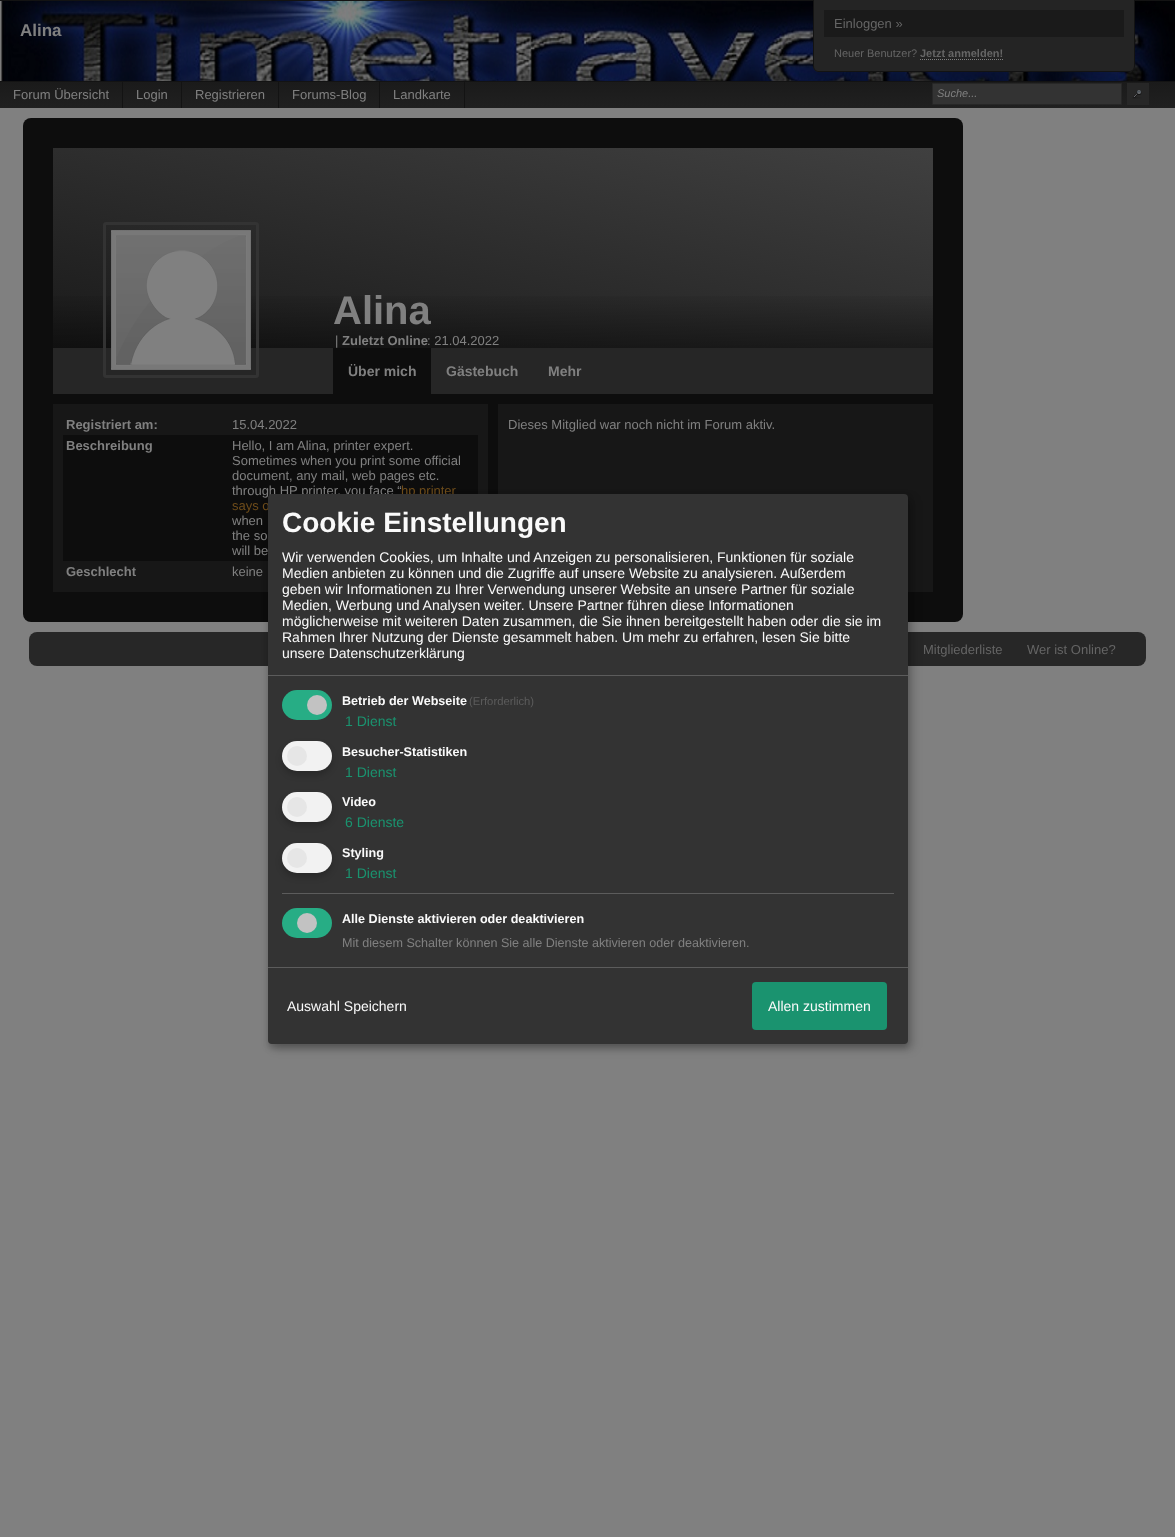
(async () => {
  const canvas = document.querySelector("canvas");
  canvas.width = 1175;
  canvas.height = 1537;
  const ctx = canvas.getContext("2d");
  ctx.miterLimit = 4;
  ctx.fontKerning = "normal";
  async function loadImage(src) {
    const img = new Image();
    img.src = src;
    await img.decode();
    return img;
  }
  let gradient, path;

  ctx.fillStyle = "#808080";
  ctx.fillRect(0, 0, 1175, 1537);
  ctx.fillStyle = "#131313";
  ctx.fillRect(0, 0, 1175, 1);
  ctx.drawImage(await loadImage("img/1.png"), 0, 1, 1175, 80);
  ctx.fillStyle = "#242424";
  ctx.beginPath();
  ctx.roundRect(813, 0, 322, 72, [0, 0, 6, 6]);
  ctx.fill();
  ctx.fillStyle = "#131313";
  path = new Path2D("M813 0H1135V66C1135 69 1132 72 1129 72H819C816 72 813 69 813 66ZM814 0H1134V66C1134 69 1132 71 1129 71H819C816 71 814 69 814 66Z");
  ctx.fill(path, "evenodd");
  ctx.fillStyle = "#1a1a1a";
  ctx.fillRect(824, 10, 300, 27);
  path = new Path2D("M920 59.5H1003");
  ctx.strokeStyle = "#808080";
  ctx.setLineDash([1, 1]);
  ctx.stroke(path);
  gradient = ctx.createLinearGradient(0, 81, 0, 108);
  gradient.addColorStop(0, "#1a1a1a");
  gradient.addColorStop(1, "#202020");
  ctx.fillStyle = gradient;
  ctx.fillRect(0, 82, 1175, 26);
  for (const [x, y, w, h, color] of [
    [0, 81, 1175, 1, "#131313"],
    [122, 81, 1, 27, "#131313"],
    [181, 81, 1, 27, "#131313"],
    [278, 81, 1, 27, "#131313"],
    [464, 81, 1, 27, "#131313"],
    [379, 81, 1, 27, "#131313"],
  ]) {
    ctx.fillStyle = color;
    ctx.fillRect(x, y, w, h);
  }
  ctx.fillStyle = "#333333";
  ctx.beginPath();
  ctx.rect(932.5, 83.5, 189, 21);
  ctx.fill();
  ctx.strokeStyle = "#272727";
  ctx.setLineDash([]);
  ctx.stroke();
  ctx.fillStyle = "#272727";
  ctx.fillRect(1127, 83, 22, 22);
  ctx.drawImage(await loadImage("img/2.png"), 1132, 90, 10, 9);
  ctx.fillStyle = "#0d0d0d";
  ctx.beginPath();
  ctx.roundRect(23, 118, 940, 504, 8);
  ctx.fill();
  ctx.fillStyle = "#171717";
  ctx.fillRect(53, 404, 880, 188);
  gradient = ctx.createLinearGradient(450, 438, 536, 58);
  gradient.addColorStop(0, "#1a1a1a");
  gradient.addColorStop(1, "#404040");
  ctx.fillStyle = gradient;
  ctx.fillRect(53, 148, 880, 200);
  gradient = ctx.createLinearGradient(493, 348, 493, 288);
  gradient.addColorStop(0, "rgba(0, 0, 0, 0.4)");
  gradient.addColorStop(1, "rgba(0, 0, 0, 0)");
  ctx.fillStyle = gradient;
  ctx.fillRect(53, 296, 880, 52);
  ctx.fillStyle = "#262626";
  ctx.fillRect(53, 348, 880, 46);
  ctx.beginPath();
  ctx.roundRect(104.5, 223.5, 153, 153, 1.5);
  ctx.strokeStyle = "#333333";
  ctx.lineWidth = 3;
  ctx.stroke();
  ctx.drawImage(await loadImage("img/3.png"), 111, 230, 140, 140);
  for (const [x, y, w, h, color] of [
    [333, 348, 98, 46, "#0d0d0d"],
    [63, 435, 415, 126, "#0d0d0d"],
    [488, 404, 10, 90, "#0d0d0d"],
  ]) {
    ctx.fillStyle = color;
    ctx.fillRect(x, y, w, h);
  }
  ctx.fillStyle = "#272727";
  ctx.beginPath();
  ctx.roundRect(29, 632, 1117, 34, 8);
  ctx.fill();
  ctx.fillStyle = "rgba(0, 0, 0, 0.19)";
  ctx.filter = "blur(5px)";
  ctx.beginPath();
  ctx.roundRect(273, 499, 640, 550, 4);
  ctx.fill();
  ctx.filter = "none";
  ctx.fillStyle = "rgba(0, 0, 0, 0.2)";
  ctx.filter = "blur(3px)";
  ctx.beginPath();
  ctx.roundRect(268, 498, 640, 550, 4);
  ctx.fill();
  ctx.filter = "none";
  ctx.font = "13px Liberation Sans";
  ctx.fillStyle = "#656565";
  ctx.fillText("Einloggen »", 834, 28);
  ctx.font = "11px Liberation Sans";
  ctx.fillText("Neuer Benutzer?", 834, 57);
  ctx.font = "bold 11px Liberation Sans";
  ctx.fillText("Jetzt anmelden!", 920, 57);
  ctx.font = "bold 17px Liberation Sans";
  ctx.fillStyle = "#808080";
  ctx.fillText("Alina", 20, 36);
  ctx.font = "13px Liberation Sans";
  for (const [text, x, y] of [
    ["Forum Übersicht", 13, 99],
    ["Login", 136, 99],
    ["Registrieren", 195, 99],
    ["Forums-Blog", 292, 99],
    ["Landkarte", 393, 99],
  ]) {
    ctx.fillText(text, x, y);
  }
  ctx.font = "italic 11px Liberation Sans";
  ctx.fillText("Suche...", 937, 97);
  ctx.font = "bold 40px Liberation Sans";
  ctx.fillText("Alina", 333, 324);
  ctx.font = "13px Liberation Sans";
  ctx.fillText("|", 335, 345);
  ctx.font = "bold 13px Liberation Sans";
  ctx.fillText("Zuletzt Online", 342, 345);
  ctx.font = "13px Liberation Sans";
  ctx.fillText(": 21.04.2022", 427, 345);
  ctx.font = "bold 14px Liberation Sans";
  for (const [text, x, y] of [
    ["Über mich", 348, 376],
    ["Gästebuch", 446, 376],
    ["Mehr", 548, 376],
  ]) {
    ctx.fillText(text, x, y);
  }
  ctx.font = "bold 13px Liberation Sans";
  ctx.fillText("Registriert am:", 66, 429);
  ctx.font = "13px Liberation Sans";
  ctx.fillText("15.04.2022", 232, 429);
  ctx.font = "bold 13px Liberation Sans";
  ctx.fillText("Beschreibung", 66, 450);
  ctx.font = "13px Liberation Sans";
  for (const [text, x, y] of [
    ["Hello, I am Alina, printer expert.", 232, 450],
    ["Sometimes when you print some official", 232, 465],
    ["document, any mail, web pages etc.", 232, 480],
    ["through HP printer, you face “", 232, 495],
  ]) {
    ctx.fillText(text, x, y);
  }
  ctx.fillStyle = "#6e4c1a";
  ctx.fillText("hp printer", 401, 495);
  ctx.fillText("says o", 232, 510);
  ctx.fillStyle = "#808080";
  for (const [text, x, y] of [
    ["when", 232, 525],
    ["the so", 232, 540],
    ["will be", 232, 555],
  ]) {
    ctx.fillText(text, x, y);
  }
  ctx.font = "bold 13px Liberation Sans";
  ctx.fillText("Geschlecht", 66, 576);
  ctx.font = "13px Liberation Sans";
  ctx.fillText("keine", 232, 576);
  ctx.fillText("Dieses Mitglied war noch nicht im Forum aktiv.", 508, 429);
  ctx.fillStyle = "#333333";
  ctx.beginPath();
  ctx.roundRect(268, 494, 640, 550, 4);
  ctx.fill();
  ctx.fillStyle = "#5c5c5c";
  ctx.fillRect(268, 675, 640, 1);
  ctx.font = "bold 28px Liberation Sans";
  ctx.fillStyle = "#fafafa";
  ctx.fillText("Cookie Einstellungen", 282, 532);
  ctx.font = "14px Liberation Sans";
  for (const [text, x, y] of [
    ["Wir verwenden Cookies, um Inhalte und Anzeigen zu personalisieren, Funktionen für soziale", 282, 562],
    ["Medien anbieten zu können und die Zugriffe auf unsere Website zu analysieren. Außerdem", 282, 578],
    ["geben wir Informationen zu Ihrer Verwendung unserer Website an unsere Partner für soziale", 282, 594],
    ["Medien, Werbung und Analysen weiter. Unsere Partner führen diese Informationen", 282, 610],
    ["möglicherweise mit weiteren Daten zusammen, die Sie ihnen bereitgestellt haben oder die sie im", 282, 626],
    ["Rahmen Ihrer Nutzung der Dienste gesammelt haben. Um mehr zu erfahren, lesen Sie bitte", 282, 642],
    ["unsere Datenschutzerklärung", 282, 658],
  ]) {
    ctx.fillText(text, x, y);
  }
  ctx.fillStyle = "#27ad85";
  ctx.beginPath();
  ctx.roundRect(282, 690, 50, 30, 15);
  ctx.fill();
  ctx.fillStyle = "#c2c2c2";
  ctx.beginPath();
  ctx.arc(317, 705, 10, 0, Math.PI * 2);
  ctx.fill();
  ctx.font = "bold 12.6px Liberation Sans";
  ctx.fillStyle = "#fafafa";
  ctx.fillText("Betrieb der Webseite", 342, 705);
  ctx.font = "11.25px Liberation Sans";
  ctx.fillStyle = "#5c5c5c";
  ctx.fillText("(Erforderlich)", 469, 705);
  ctx.font = "14px Liberation Sans";
  ctx.fillStyle = "#1a936f";
  ctx.fillText("1 Dienst", 345, 726);
  ctx.fillStyle = "rgba(0, 0, 0, 0.2)";
  ctx.filter = "blur(3px)";
  ctx.beginPath();
  ctx.roundRect(282, 745, 50, 30, 15);
  ctx.fill();
  ctx.filter = "none";
  ctx.fillStyle = "#f2f2f2";
  ctx.beginPath();
  ctx.roundRect(282, 741, 50, 30, 15);
  ctx.fill();
  ctx.fillStyle = "#e6e6e6";
  ctx.beginPath();
  ctx.arc(297, 756, 10, 0, Math.PI * 2);
  ctx.fill();
  ctx.font = "bold 12.6px Liberation Sans";
  ctx.fillStyle = "#fafafa";
  ctx.fillText("Besucher-Statistiken", 342, 756);
  ctx.font = "14px Liberation Sans";
  ctx.fillStyle = "#1a936f";
  ctx.fillText("1 Dienst", 345, 777);
  ctx.fillStyle = "rgba(0, 0, 0, 0.2)";
  ctx.filter = "blur(3px)";
  ctx.beginPath();
  ctx.roundRect(282, 796, 50, 30, 15);
  ctx.fill();
  ctx.filter = "none";
  ctx.fillStyle = "#f2f2f2";
  ctx.beginPath();
  ctx.roundRect(282, 792, 50, 30, 15);
  ctx.fill();
  ctx.fillStyle = "#e6e6e6";
  ctx.beginPath();
  ctx.arc(297, 807, 10, 0, Math.PI * 2);
  ctx.fill();
  ctx.font = "bold 12.6px Liberation Sans";
  ctx.fillStyle = "#fafafa";
  ctx.fillText("Video", 342, 806);
  ctx.font = "14px Liberation Sans";
  ctx.fillStyle = "#1a936f";
  ctx.fillText("6 Dienste", 345, 827);
  ctx.fillStyle = "rgba(0, 0, 0, 0.2)";
  ctx.filter = "blur(3px)";
  ctx.beginPath();
  ctx.roundRect(282, 847, 50, 30, 15);
  ctx.fill();
  ctx.filter = "none";
  ctx.fillStyle = "#f2f2f2";
  ctx.beginPath();
  ctx.roundRect(282, 843, 50, 30, 15);
  ctx.fill();
  ctx.fillStyle = "#e6e6e6";
  ctx.beginPath();
  ctx.arc(297, 858, 10, 0, Math.PI * 2);
  ctx.fill();
  ctx.font = "bold 12.6px Liberation Sans";
  ctx.fillStyle = "#fafafa";
  ctx.fillText("Styling", 342, 857);
  ctx.font = "14px Liberation Sans";
  ctx.fillStyle = "#1a936f";
  ctx.fillText("1 Dienst", 345, 878);
  ctx.fillStyle = "#5c5c5c";
  ctx.fillRect(282, 893, 612, 1);
  ctx.fillStyle = "#27ad85";
  ctx.beginPath();
  ctx.roundRect(282, 908, 50, 30, 15);
  ctx.fill();
  ctx.fillStyle = "#c2c2c2";
  ctx.beginPath();
  ctx.arc(307, 923, 10, 0, Math.PI * 2);
  ctx.fill();
  ctx.font = "bold 12.6px Liberation Sans";
  ctx.fillStyle = "#fafafa";
  ctx.fillText("Alle Dienste aktivieren oder deaktivieren", 342, 923);
  ctx.font = "12.6px Liberation Sans";
  ctx.fillStyle = "#808080";
  ctx.fillText("Mit diesem Schalter können Sie alle Dienste aktivieren oder deaktivieren.", 342, 947);
  ctx.fillStyle = "#5c5c5c";
  ctx.fillRect(268, 967, 640, 1);
  ctx.font = "14px Liberation Sans";
  ctx.fillStyle = "#fafafa";
  ctx.fillText("Auswahl Speichern", 287, 1011);
  ctx.fillStyle = "#1a936f";
  ctx.beginPath();
  ctx.roundRect(752, 982, 135, 48, 4);
  ctx.fill();
  ctx.fillStyle = "#fafafa";
  ctx.fillText("Allen zustimmen", 768, 1011);
  ctx.font = "13px Liberation Sans";
  ctx.fillStyle = "#656565";
  ctx.fillText("Mitgliederliste", 923, 654);
  ctx.fillText("Wer ist Online?", 1027, 654);
})();
